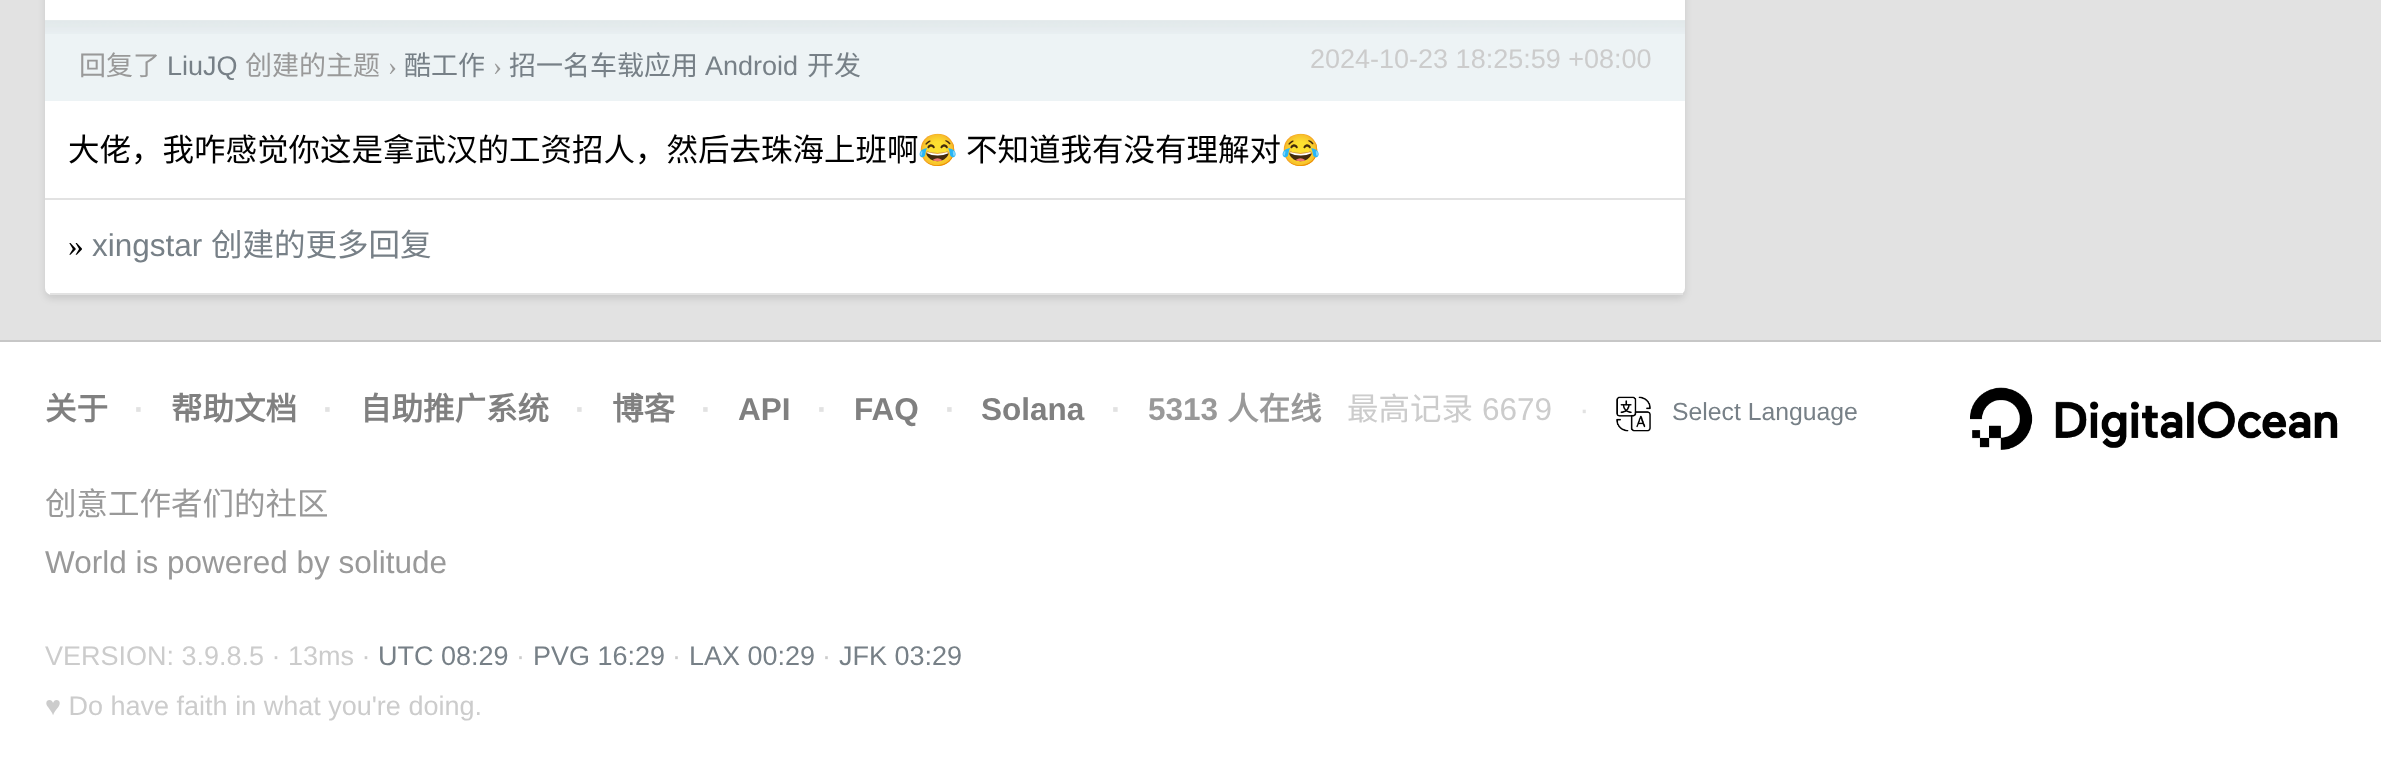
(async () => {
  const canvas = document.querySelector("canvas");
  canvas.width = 2381;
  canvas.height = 776;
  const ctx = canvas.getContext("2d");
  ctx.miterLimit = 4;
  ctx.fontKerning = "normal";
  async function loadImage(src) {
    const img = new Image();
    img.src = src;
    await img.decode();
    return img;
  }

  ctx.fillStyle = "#ffffff";
  ctx.fillRect(0, 0, 2381, 776);
  ctx.fillStyle = "#e2e2e2";
  ctx.fillRect(0, 0, 2381, 340);
  ctx.fillStyle = "rgba(0, 0, 0, 0.1)";
  ctx.filter = "blur(3.5px)";
  ctx.beginPath();
  ctx.roundRect(45, -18, 1640, 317, 7);
  ctx.fill();
  ctx.filter = "none";
  ctx.fillStyle = "#ffffff";
  ctx.beginPath();
  ctx.roundRect(45, -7, 1640, 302, 7);
  ctx.fill();
  ctx.fillStyle = "#e2e2e2";
  ctx.fillRect(50, 293, 1633, 2);
  ctx.fillStyle = "#edf3f5";
  ctx.fillRect(45, 20, 1640, 81);
  ctx.drawImage(await loadImage("img/1.png"), 45, 20, 1640, 14);
  ctx.fillStyle = "#e2e2e2";
  ctx.fillRect(45, 198, 1640, 2);
  ctx.fillStyle = "#c7c7c7";
  ctx.fillRect(0, 340, 2381, 2);
  ctx.drawImage(await loadImage("img/2.png"), 1616, 396, 35, 36);
  ctx.drawImage(await loadImage("img/3.png"), 1970, 387, 368, 63);
  ctx.font = "27px Noto Sans CJK SC";
  ctx.fillStyle = "#999999";
  ctx.fillText("回复了", 79, 75);
  ctx.font = "27px Liberation Sans";
  ctx.fillStyle = "#778087";
  ctx.fillText("LiuJQ", 167, 75);
  ctx.font = "27px Noto Sans CJK SC";
  ctx.fillStyle = "#999999";
  ctx.fillText("创建的主题", 245, 75);
  ctx.font = "27px Liberation Serif";
  ctx.fillText("›", 388, 75);
  ctx.font = "27px Noto Sans CJK SC";
  ctx.fillStyle = "#778087";
  ctx.fillText("酷工作", 404, 75);
  ctx.font = "27px Liberation Serif";
  ctx.fillStyle = "#999999";
  ctx.fillText("›", 493, 75);
  ctx.font = "27px Noto Sans CJK SC";
  ctx.fillStyle = "#778087";
  ctx.fillText("招一名车载应用", 509, 75);
  ctx.font = "27px Liberation Sans";
  ctx.fillText("Android", 705, 75);
  ctx.font = "27px Noto Sans CJK SC";
  ctx.fillText("开发", 807, 75);
  ctx.font = "27px Liberation Sans";
  ctx.fillStyle = "#cccccc";
  ctx.fillText("2024-10-23 18:25:59 +08:00", 1310, 68);
  ctx.font = "31.5px Noto Sans CJK SC";
  ctx.fillStyle = "#000000";
  ctx.fillText("大佬，我咋感觉你这是拿武汉的工资招人，然后去珠海上班啊", 68, 161);
  ctx.font = "31.5px Noto Color Emoji";
  ctx.fillText("😂", 918, 161);
  ctx.font = "31.5px Noto Sans CJK SC";
  ctx.fillText("不知道我有没有理解对", 966, 161);
  ctx.font = "31.5px Noto Color Emoji";
  ctx.fillText("😂", 1281, 161);
  ctx.font = "31.5px Liberation Serif";
  ctx.fillText("»", 68, 256);
  ctx.font = "31.5px Liberation Sans";
  ctx.fillStyle = "#778087";
  ctx.fillText("xingstar", 92, 256);
  ctx.font = "31.5px Noto Sans CJK SC";
  ctx.fillText("创建的更多回复", 211, 256);
  ctx.font = "bold 31.5px Noto Sans CJK SC";
  ctx.fillStyle = "#808080";
  ctx.fillText("关于", 45, 420);
  ctx.font = "bold 31.5px Liberation Sans";
  ctx.fillStyle = "#e2e2e2";
  ctx.fillText("·", 134, 420);
  ctx.font = "bold 31.5px Noto Sans CJK SC";
  ctx.fillStyle = "#808080";
  ctx.fillText("帮助文档", 171, 420);
  ctx.font = "bold 31.5px Liberation Sans";
  ctx.fillStyle = "#e2e2e2";
  ctx.fillText("·", 323, 420);
  ctx.font = "bold 31.5px Noto Sans CJK SC";
  ctx.fillStyle = "#808080";
  ctx.fillText("自助推广系统", 360, 420);
  ctx.font = "bold 31.5px Liberation Sans";
  ctx.fillStyle = "#e2e2e2";
  ctx.fillText("·", 575, 420);
  ctx.font = "bold 31.5px Noto Sans CJK SC";
  ctx.fillStyle = "#808080";
  ctx.fillText("博客", 612, 420);
  ctx.font = "bold 31.5px Liberation Sans";
  ctx.fillStyle = "#e2e2e2";
  ctx.fillText("·", 701, 420);
  ctx.fillStyle = "#808080";
  ctx.fillText("API", 738, 420);
  ctx.fillStyle = "#e2e2e2";
  ctx.fillText("·", 817, 420);
  ctx.fillStyle = "#808080";
  ctx.fillText("FAQ", 854, 420);
  ctx.fillStyle = "#e2e2e2";
  ctx.fillText("·", 945, 420);
  ctx.fillStyle = "#808080";
  ctx.fillText("Solana", 981, 420);
  ctx.fillStyle = "#e2e2e2";
  ctx.fillText("·", 1111, 420);
  ctx.fillStyle = "#999999";
  ctx.fillText("5313", 1148, 420);
  ctx.font = "bold 31.5px Noto Sans CJK SC";
  ctx.fillText("人在线", 1227, 420);
  ctx.font = "31.5px Noto Sans CJK SC";
  ctx.fillStyle = "#cccccc";
  ctx.fillText("最高记录", 1347, 420);
  ctx.font = "31.5px Liberation Sans";
  ctx.fillText("6679", 1482, 420);
  ctx.fillStyle = "#e2e2e2";
  ctx.fillText("·", 1579, 420);
  ctx.font = "24.75px Liberation Sans";
  ctx.fillStyle = "#778087";
  ctx.fillText("Select Language", 1672, 420);
  ctx.font = "31.5px Noto Sans CJK SC";
  ctx.fillStyle = "#999999";
  ctx.fillText("创意工作者们的社区", 45, 515);
  ctx.font = "31.5px Liberation Sans";
  ctx.fillText("World is powered by solitude", 45, 573);
  ctx.font = "27px Liberation Sans";
  ctx.fillStyle = "#cccccc";
  ctx.fillText("VERSION: 3.9.8.5 · 13ms ·", 45, 665);
  ctx.fillStyle = "#778087";
  ctx.fillText("UTC 08:29", 378, 665);
  ctx.fillStyle = "#cccccc";
  ctx.fillText("·", 516, 665);
  ctx.fillStyle = "#778087";
  ctx.fillText("PVG 16:29", 533, 665);
  ctx.fillStyle = "#cccccc";
  ctx.fillText("·", 672, 665);
  ctx.fillStyle = "#778087";
  ctx.fillText("LAX 00:29", 689, 665);
  ctx.fillStyle = "#cccccc";
  ctx.fillText("·", 822, 665);
  ctx.fillStyle = "#778087";
  ctx.fillText("JFK 03:29", 839, 665);
  ctx.fillStyle = "#cccccc";
  ctx.fillText("♥ Do have faith in what you're doing.", 45, 715);
})();
